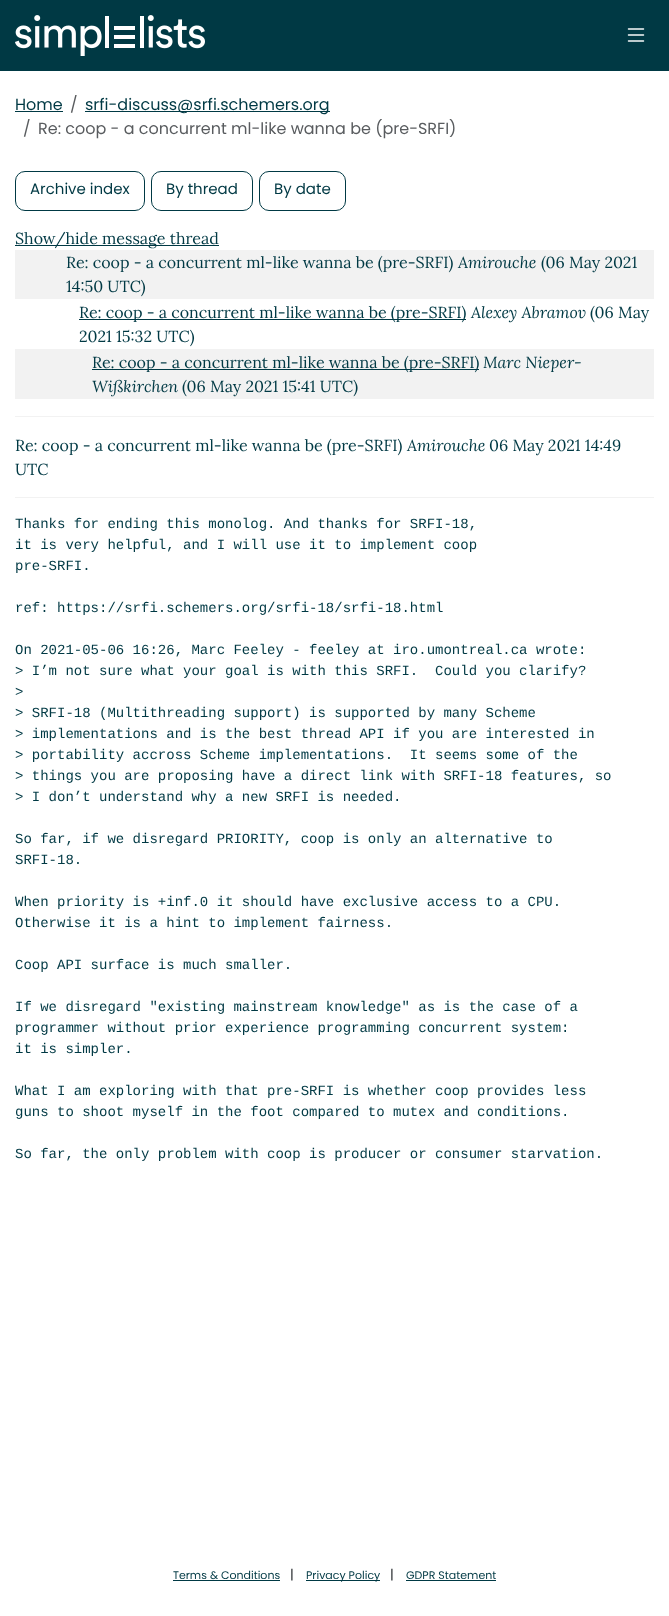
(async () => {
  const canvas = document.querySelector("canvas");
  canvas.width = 669;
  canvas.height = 1616;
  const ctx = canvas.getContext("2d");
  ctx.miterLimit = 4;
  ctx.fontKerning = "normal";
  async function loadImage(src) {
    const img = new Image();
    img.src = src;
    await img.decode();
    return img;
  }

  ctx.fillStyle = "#ffffff";
  ctx.fillRect(0, 0, 669, 1616);
  ctx.fillStyle = "#003944";
  ctx.fillRect(0, 0, 669, 71);
  ctx.drawImage(await loadImage("img/1.png"), 15, 15, 190, 41);
  ctx.drawImage(await loadImage("img/2.png"), 627, 28, 18, 14);
  ctx.fillRect(15, 111, 48, 1);
  ctx.fillRect(85, 111, 245, 1);
  ctx.beginPath();
  ctx.roundRect(15.5, 171.5, 129, 39, 9.5);
  ctx.strokeStyle = "#003944";
  ctx.stroke();
  ctx.beginPath();
  ctx.roundRect(151.5, 171.5, 101, 39, 9.5);
  ctx.stroke();
  ctx.beginPath();
  ctx.roundRect(259.5, 171.5, 86, 39, 9.5);
  ctx.stroke();
  for (const [x, y, w, h, color] of [
    [15, 245, 204, 1, "#003944"],
    [15, 250, 639, 49, "#f2f2f2"],
    [79, 319, 387, 1, "#003944"],
    [15, 349, 639, 50, "#f2f2f2"],
    [92, 369, 387, 1, "#003944"],
    [15, 416, 639, 1, "#f2f2f2"],
    [15, 497, 639, 1, "#f2f2f2"],
    [173, 1580, 107, 1, "#003944"],
    [306, 1580, 74, 1, "#003944"],
    [406, 1580, 90, 1, "#003944"],
  ]) {
    ctx.fillStyle = color;
    ctx.fillRect(x, y, w, h);
  }
  ctx.font = "16px Poppins";
  ctx.fillText("Home", 15, 110);
  ctx.fillStyle = "#595c5f";
  ctx.fillText("/", 70, 110);
  ctx.fillStyle = "#003944";
  ctx.fillText("srfi-discuss@srfi.schemers.org", 85, 110);
  ctx.fillStyle = "#595c5f";
  ctx.fillText("/", 23, 134);
  ctx.fillText("Re: coop - a concurrent ml-like wanna be (pre-SRFI)", 38, 134);
  ctx.font = "15px Poppins";
  ctx.fillStyle = "#003944";
  for (const [text, x, y] of [
    ["Archive index", 30, 194],
    ["By thread", 166, 194],
    ["By date", 274, 194],
  ]) {
    ctx.fillText(text, x, y);
  }
  ctx.font = "16px Lora";
  ctx.fillText("Show/hide message thread", 15, 244);
  ctx.fillText("Re: coop - a concurrent ml-like wanna be (pre-SRFI)", 66, 268);
  ctx.font = "italic 16px Lora";
  ctx.fillText("Amirouche", 458, 268);
  ctx.font = "16px Lora";
  for (const [text, x, y] of [
    ["(06 May 2021", 541, 268],
    ["14:50 UTC)", 66, 292],
    ["Re: coop - a concurrent ml-like wanna be (pre-SRFI)", 79, 318],
  ]) {
    ctx.fillText(text, x, y);
  }
  ctx.font = "italic 16px Lora";
  ctx.fillText("Alexey Abramov", 471, 318);
  ctx.font = "16px Lora";
  for (const [text, x, y] of [
    ["(06 May", 590, 318],
    ["2021 15:32 UTC)", 79, 342],
    ["Re: coop - a concurrent ml-like wanna be (pre-SRFI)", 92, 368],
  ]) {
    ctx.fillText(text, x, y);
  }
  ctx.font = "italic 16px Lora";
  ctx.fillText("Marc Nieper-", 483, 368);
  ctx.fillText("Wißkirchen", 92, 392);
  ctx.font = "16px Lora";
  ctx.fillText("(06 May 2021 15:41 UTC)", 182, 392);
  ctx.fillText("Re: coop - a concurrent ml-like wanna be (pre-SRFI)", 15, 451);
  ctx.font = "italic 16px Lora";
  ctx.fillText("Amirouche", 407, 451);
  ctx.font = "16px Lora";
  ctx.fillText("06 May 2021 14:49", 489, 451);
  ctx.fillText("UTC", 15, 475);
  ctx.font = "14px Liberation Mono";
  for (const [text, x, y] of [
    ["Thanks for ending this monolog. And thanks for SRFI-18,", 15, 528],
    ["it is very helpful, and I will use it to implement coop", 15, 549],
    ["pre-SRFI.", 15, 570],
    ["ref: https://srfi.schemers.org/srfi-18/srfi-18.html", 15, 612],
    ["On 2021-05-06 16:26, Marc Feeley - feeley at iro.umontreal.ca wrote:", 15, 654],
    ["> I’m not sure what your goal is with this SRFI.  Could you clarify?", 15, 675],
    [">", 15, 696],
    ["> SRFI-18 (Multithreading support) is supported by many Scheme", 15, 717],
    ["> implementations and is the best thread API if you are interested in", 15, 738],
    ["> portability accross Scheme implementations.  It seems some of the", 15, 759],
    ["> things you are proposing have a direct link with SRFI-18 features, so", 15, 780],
    ["> I don’t understand why a new SRFI is needed.", 15, 801],
    ["So far, if we disregard PRIORITY, coop is only an alternative to", 15, 843],
    ["SRFI-18.", 15, 864],
    ["When priority is +inf.0 it should have exclusive access to a CPU.", 15, 906],
    ["Otherwise it is a hint to implement fairness.", 15, 927],
    ["Coop API surface is much smaller.", 15, 969],
    ["If we disregard \"existing mainstream knowledge\" as is the case of a", 15, 1011],
    ["programmer without prior experience programming concurrent system:", 15, 1032],
    ["it is simpler.", 15, 1053],
    ["What I am exploring with that pre-SRFI is whether coop provides less", 15, 1095],
    ["guns to shoot myself in the foot compared to mutex and conditions.", 15, 1116],
    ["So far, the only problem with coop is producer or consumer starvation.", 15, 1158],
  ]) {
    ctx.fillText(text, x, y);
  }
  ctx.font = "11px Poppins";
  ctx.fillText("Terms & Conditions", 173, 1579);
  ctx.font = "13px Poppins";
  ctx.fillStyle = "#212529";
  ctx.fillText("|", 290, 1579);
  ctx.font = "11px Poppins";
  ctx.fillStyle = "#003944";
  ctx.fillText("Privacy Policy", 306, 1579);
  ctx.font = "13px Poppins";
  ctx.fillStyle = "#212529";
  ctx.fillText("|", 390, 1579);
  ctx.font = "11px Poppins";
  ctx.fillStyle = "#003944";
  ctx.fillText("GDPR Statement", 406, 1579);
})();
